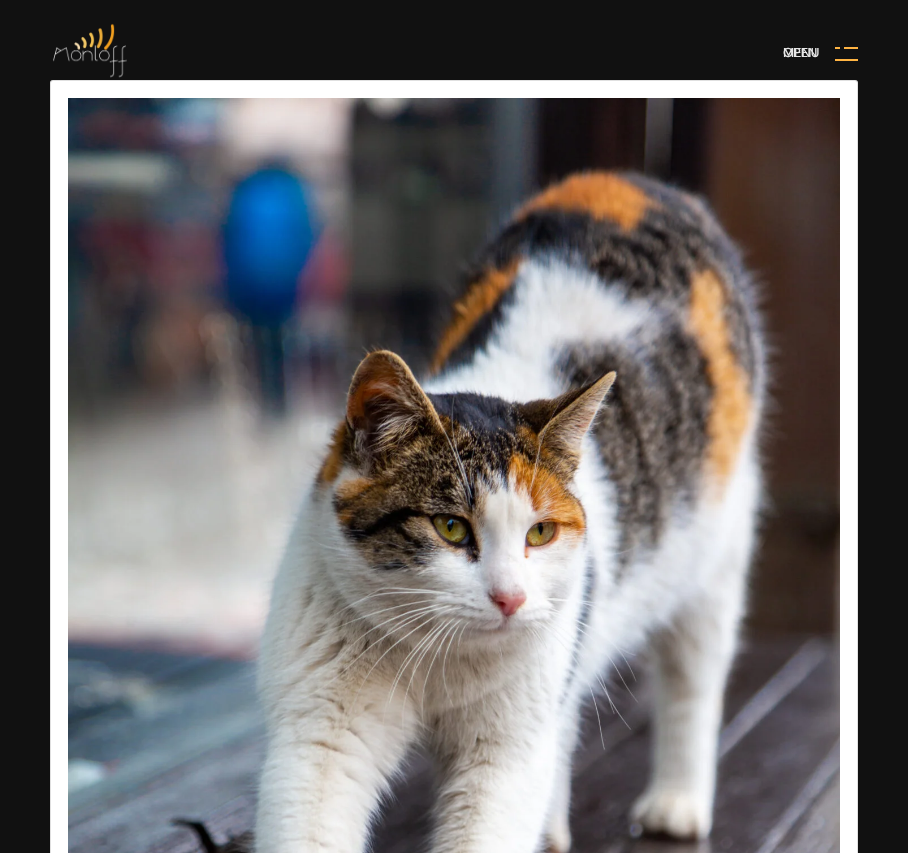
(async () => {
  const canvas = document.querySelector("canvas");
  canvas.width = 908;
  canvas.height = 853;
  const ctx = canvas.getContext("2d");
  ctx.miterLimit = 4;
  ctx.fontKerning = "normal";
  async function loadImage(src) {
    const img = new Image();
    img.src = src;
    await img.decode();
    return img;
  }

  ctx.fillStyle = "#111111";
  ctx.fillRect(0, 0, 908, 853);
  ctx.drawImage(await loadImage("img/1.png"), 53, 23, 74, 55);
  for (const [x, y, w, h, color] of [
    [835, 47, 5, 2, "#ffb443"],
    [844, 47, 14, 2, "#ffb443"],
    [835, 59, 23, 2, "#ffb443"],
  ]) {
    ctx.fillStyle = color;
    ctx.fillRect(x, y, w, h);
  }
  ctx.fillStyle = "#ffffff";
  ctx.beginPath();
  ctx.roundRect(50, 80, 808, 773, [3, 3, 0, 0]);
  ctx.fill();
  ctx.beginPath();
  ctx.roundRect(50.5, 80.5, 807, 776, 2.5);
  ctx.strokeStyle = "rgba(0, 0, 0, 0.12)";
  ctx.stroke();
  ctx.drawImage(await loadImage("img/2.png"), 68, 98, 772, 755);
  ctx.font = "500 13px DM Sans";
  ctx.fillStyle = "#e7e7e7";
  ctx.fillText("MENU", 783, 57);
  ctx.fillText("OPEN", 783, 57);
})();
